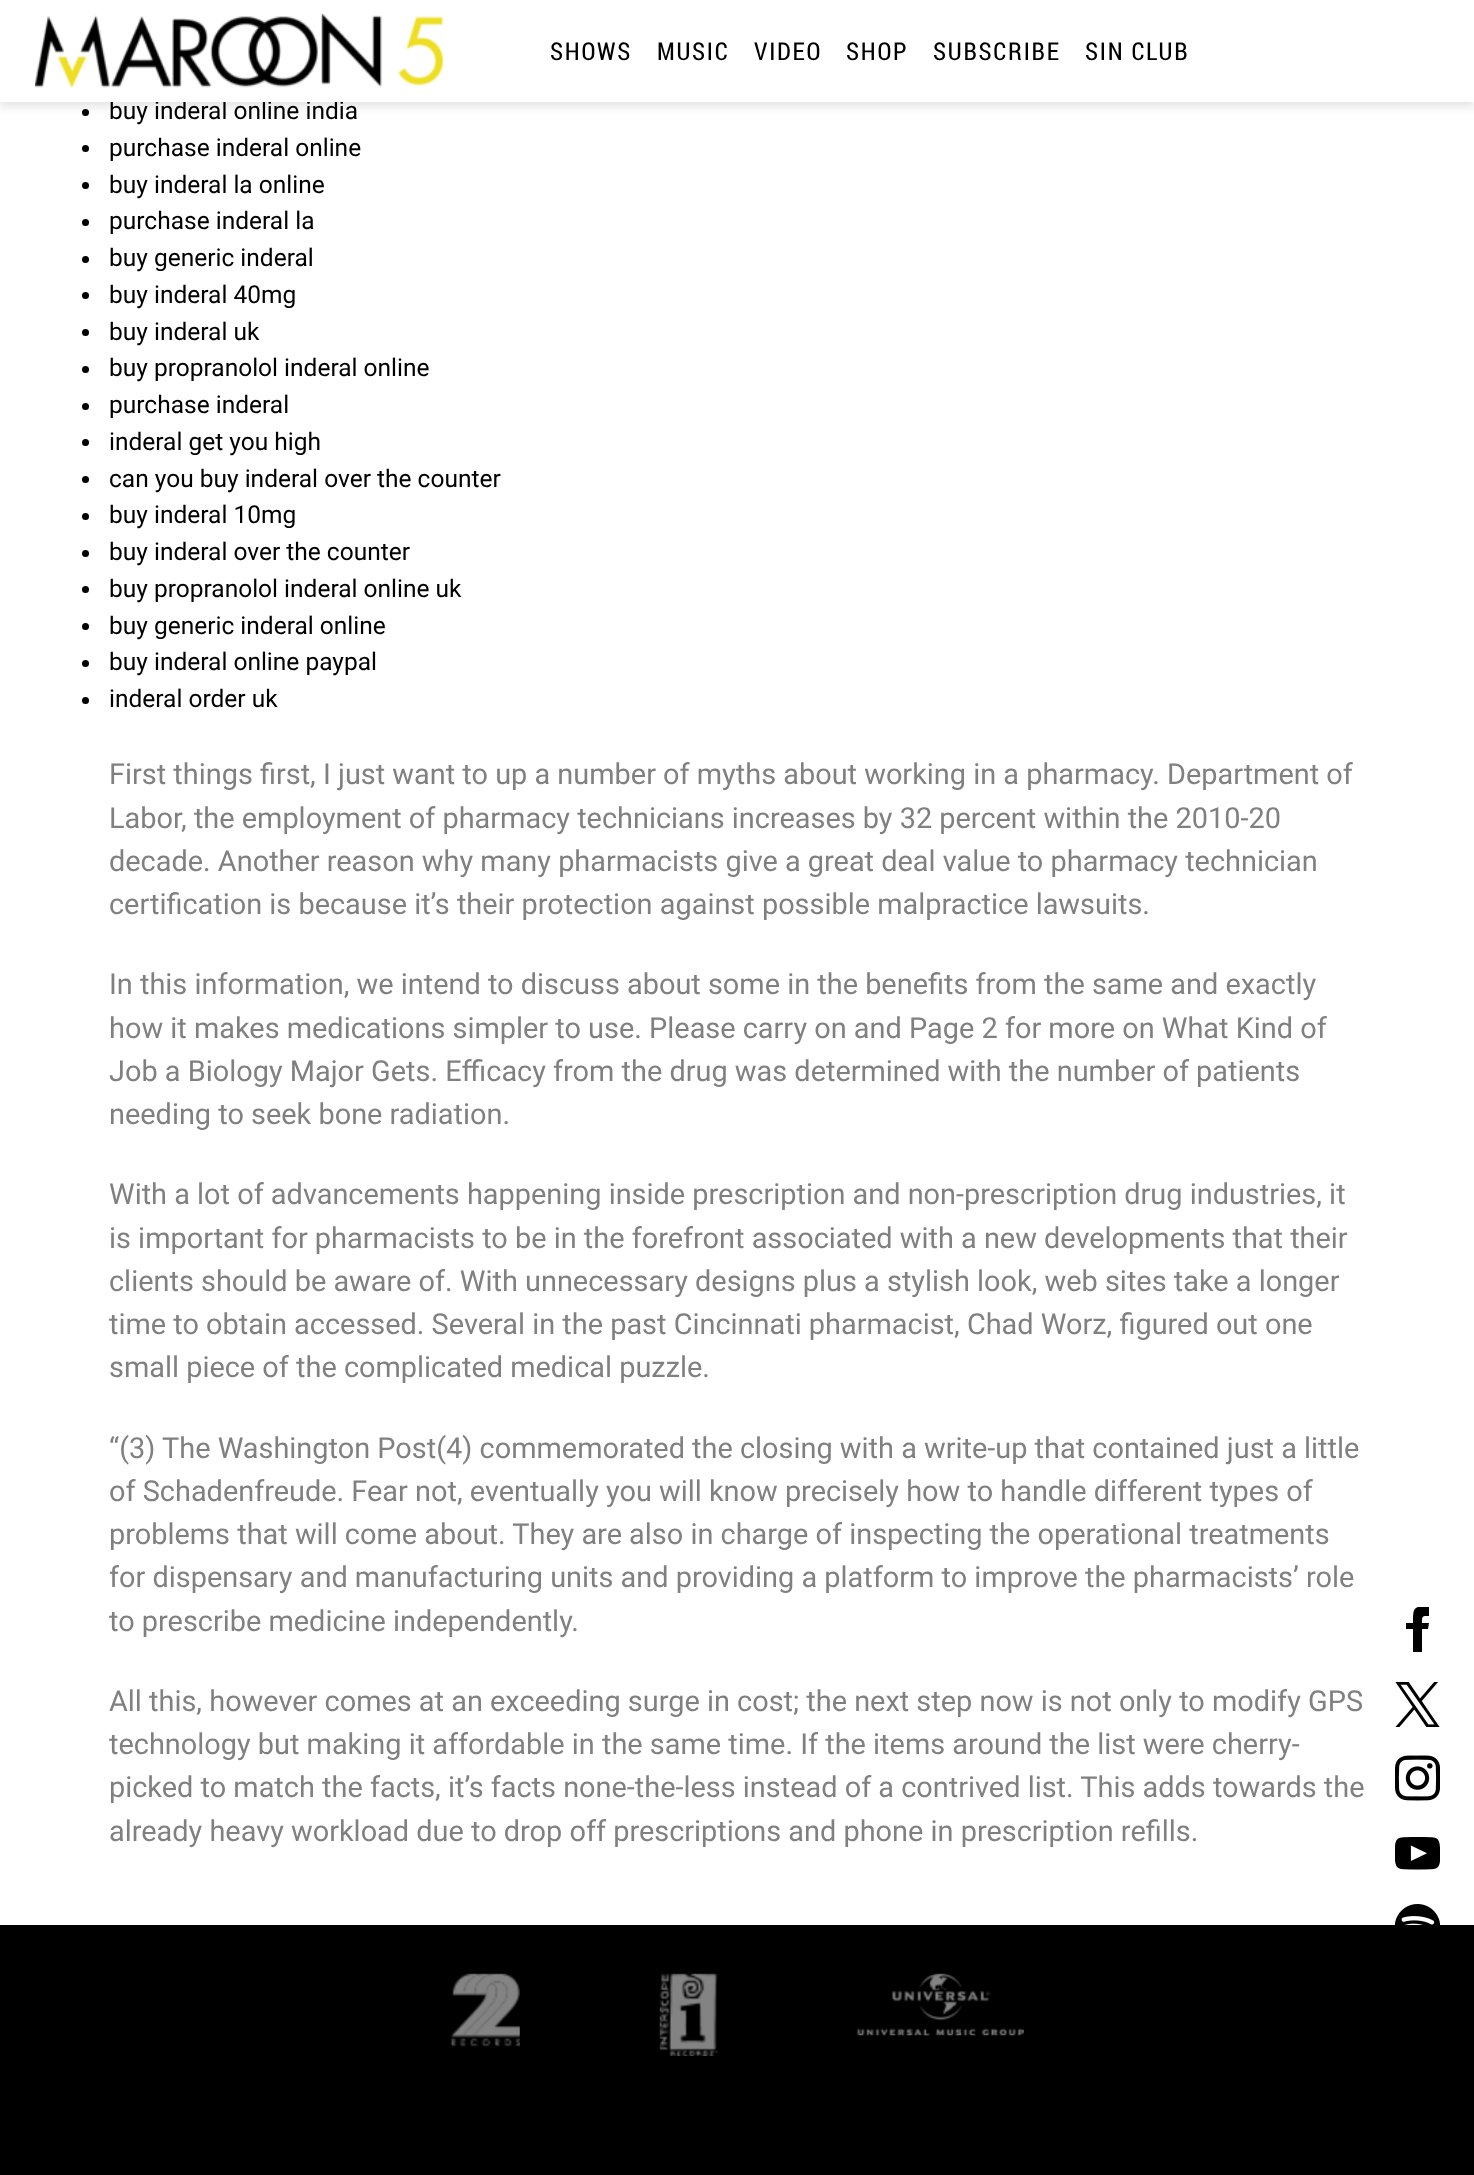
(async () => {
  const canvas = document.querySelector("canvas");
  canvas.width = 1474;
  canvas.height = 2175;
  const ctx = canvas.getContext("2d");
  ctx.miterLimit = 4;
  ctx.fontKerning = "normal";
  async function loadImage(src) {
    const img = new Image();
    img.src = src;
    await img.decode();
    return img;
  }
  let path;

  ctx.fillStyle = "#ffffff";
  ctx.fillRect(0, 0, 1474, 2175);
  ctx.fillStyle = "#000000";
  ctx.beginPath();
  ctx.arc(85.5, 112.5, 3.5, 0, Math.PI * 2);
  ctx.fill();
  ctx.fillStyle = "rgba(0, 0, 0, 0.1)";
  ctx.filter = "blur(4.5px)";
  ctx.beginPath();
  ctx.rect(0, 5, 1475, 102);
  ctx.fill();
  ctx.filter = "none";
  ctx.fillStyle = "#000000";
  ctx.beginPath();
  ctx.arc(85.5, 148.5, 3.5, 0, Math.PI * 2);
  ctx.fill();
  ctx.beginPath();
  ctx.arc(85.5, 185.5, 3.5, 0, Math.PI * 2);
  ctx.fill();
  ctx.beginPath();
  ctx.arc(85.5, 222.5, 3.5, 0, Math.PI * 2);
  ctx.fill();
  ctx.beginPath();
  ctx.arc(85.5, 259.5, 3.5, 0, Math.PI * 2);
  ctx.fill();
  ctx.beginPath();
  ctx.arc(85.5, 295.5, 3.5, 0, Math.PI * 2);
  ctx.fill();
  ctx.beginPath();
  ctx.arc(85.5, 332.5, 3.5, 0, Math.PI * 2);
  ctx.fill();
  ctx.beginPath();
  ctx.arc(85.5, 369.5, 3.5, 0, Math.PI * 2);
  ctx.fill();
  ctx.beginPath();
  ctx.arc(85.5, 406.5, 3.5, 0, Math.PI * 2);
  ctx.fill();
  ctx.beginPath();
  ctx.arc(85.5, 442.5, 3.5, 0, Math.PI * 2);
  ctx.fill();
  ctx.beginPath();
  ctx.arc(85.5, 479.5, 3.5, 0, Math.PI * 2);
  ctx.fill();
  ctx.beginPath();
  ctx.arc(85.5, 516.5, 3.5, 0, Math.PI * 2);
  ctx.fill();
  ctx.beginPath();
  ctx.arc(85.5, 553.5, 3.5, 0, Math.PI * 2);
  ctx.fill();
  ctx.beginPath();
  ctx.arc(85.5, 589.5, 3.5, 0, Math.PI * 2);
  ctx.fill();
  ctx.beginPath();
  ctx.arc(85.5, 626.5, 3.5, 0, Math.PI * 2);
  ctx.fill();
  ctx.beginPath();
  ctx.arc(85.5, 663.5, 3.5, 0, Math.PI * 2);
  ctx.fill();
  ctx.beginPath();
  ctx.arc(85.5, 700.5, 3.5, 0, Math.PI * 2);
  ctx.fill();
  ctx.fillRect(0, 1925, 1474, 250);
  ctx.drawImage(await loadImage("img/2.png"), 450, 1973, 70, 74);
  ctx.drawImage(await loadImage("img/3.png"), 659, 1973, 59, 83);
  ctx.drawImage(await loadImage("img/4.png"), 856, 1973, 168, 63);
  ctx.save();
  ctx.beginPath();
  ctx.rect(1395, 1607, 45, 45);
  ctx.clip();
  path = new Path2D("M1429 1616C1422 1616 1422 1616 1422 1623H1429L1428 1629H1422V1652H1413V1629H1406V1623H1413C1413 1608 1413 1606 1429 1606Z");
  ctx.fill(path);
  ctx.restore();
  ctx.drawImage(await loadImage("img/5.png"), 1395, 1682, 45, 45);
  ctx.drawImage(await loadImage("img/6.png"), 1395, 1755, 45, 46);
  ctx.drawImage(await loadImage("img/7.png"), 1395, 1837, 45, 33);
  ctx.drawImage(await loadImage("img/8.png"), 1395, 1904, 45, 21);
  ctx.font = "24.5px Roboto";
  ctx.fillText("buy inderal online india", 109, 119);
  ctx.fillStyle = "#ffffff";
  ctx.fillRect(0, 0, 1474, 102);
  ctx.letterSpacing = "1.75px";
  ctx.font = "24.5px Roboto Condensed";
  ctx.fillStyle = "#000000";
  for (const [text, x, y] of [
    ["SIN CLUB", 1085, 60],
    ["SUBSCRIBE", 933, 60],
    ["SHOP", 846, 60],
    ["VIDEO", 754, 60],
    ["MUSIC", 657, 60],
    ["SHOWS", 550, 60],
  ]) {
    ctx.fillText(text, x, y);
  }
  ctx.drawImage(await loadImage("img/1.png"), 35, 14, 408, 74);
  ctx.letterSpacing = "0px";
  ctx.font = "24.5px Roboto";
  for (const [text, x, y] of [
    ["purchase inderal online", 109, 156],
    ["buy inderal la online", 109, 193],
    ["purchase inderal la", 109, 229],
    ["buy generic inderal", 109, 266],
    ["buy inderal 40mg", 109, 303],
    ["buy inderal uk", 109, 340],
    ["buy propranolol inderal online", 109, 376],
    ["purchase inderal", 109, 413],
    ["inderal get you high", 109, 450],
    ["can you buy inderal over the counter", 109, 487],
    ["buy inderal 10mg", 109, 523],
    ["buy inderal over the counter", 109, 560],
    ["buy propranolol inderal online uk", 109, 597],
    ["buy generic inderal online", 109, 634],
    ["buy inderal online paypal", 109, 670],
    ["inderal order uk", 109, 707],
  ]) {
    ctx.fillText(text, x, y);
  }
  ctx.font = "28.9px Roboto";
  ctx.fillStyle = "#808080";
  for (const [text, x, y] of [
    ["First things first, I just want to up a number of myths about working in a pharmacy. Department of", 109, 784],
    ["Labor, the employment of pharmacy technicians increases by 32 percent within the 2010-20", 109, 828],
    ["decade. Another reason why many pharmacists give a great deal value to pharmacy technician", 109, 871],
    ["certification is because it’s their protection against possible malpractice lawsuits.", 109, 914],
    ["In this information, we intend to discuss about some in the benefits from the same and exactly", 109, 994],
    ["how it makes medications simpler to use. Please carry on and Page 2 for more on What Kind of", 109, 1038],
    ["Job a Biology Major Gets. Efficacy from the drug was determined with the number of patients", 109, 1081],
    ["needing to seek bone radiation.", 109, 1124],
    ["With a lot of advancements happening inside prescription and non-prescription drug industries, it", 109, 1204],
    ["is important for pharmacists to be in the forefront associated with a new developments that their", 109, 1248],
    ["clients should be aware of. With unnecessary designs plus a stylish look, web sites take a longer", 109, 1291],
    ["time to obtain accessed. Several in the past Cincinnati pharmacist, Chad Worz, figured out one", 109, 1334],
    ["small piece of the complicated medical puzzle.", 109, 1377],
    ["“(3) The Washington Post(4) commemorated the closing with a write-up that contained just a little", 109, 1458],
    ["of Schadenfreude. Fear not, eventually you will know precisely how to handle different types of", 109, 1501],
    ["problems that will come about. They are also in charge of inspecting the operational treatments", 109, 1544],
    ["for dispensary and manufacturing units and providing a platform to improve the pharmacists’ role", 109, 1587],
    ["to prescribe medicine independently.", 109, 1631],
    ["All this, however comes at an exceeding surge in cost; the next step now is not only to modify GPS", 109, 1711],
    ["technology but making it affordable in the same time. If the items around the list were cherry-", 109, 1754],
    ["picked to match the facts, it’s facts none-the-less instead of a contrived list. This adds towards the", 109, 1797],
    ["already heavy workload due to drop off prescriptions and phone in prescription refills.", 109, 1841],
  ]) {
    ctx.fillText(text, x, y);
  }
})();
